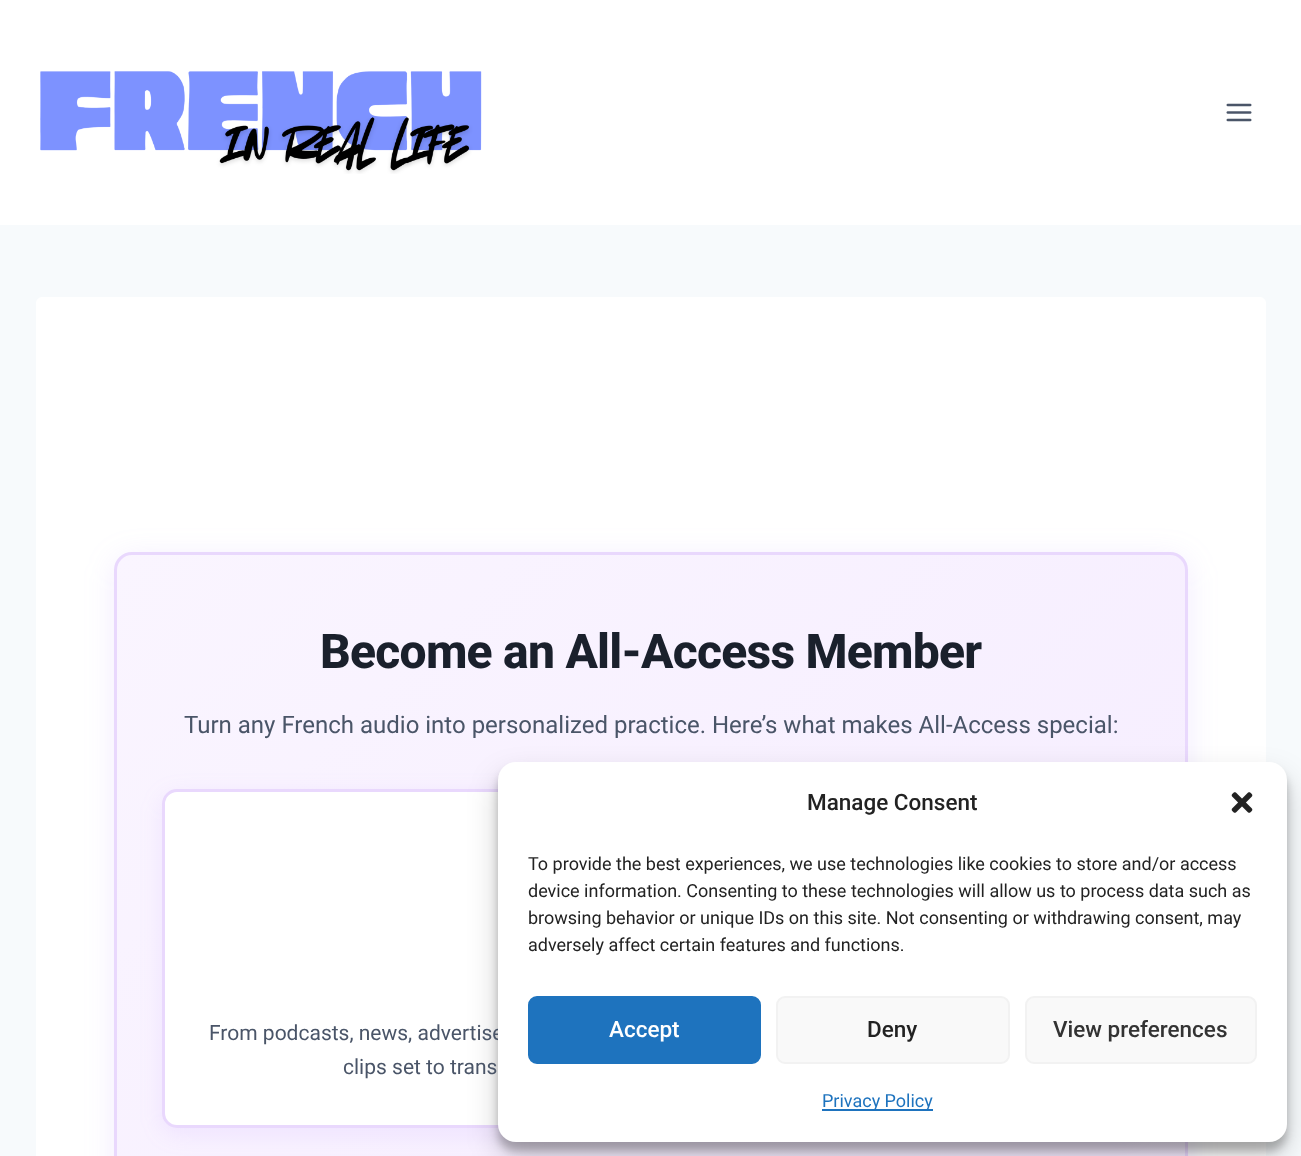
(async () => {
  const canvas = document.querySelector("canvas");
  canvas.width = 1301;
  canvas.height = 1156;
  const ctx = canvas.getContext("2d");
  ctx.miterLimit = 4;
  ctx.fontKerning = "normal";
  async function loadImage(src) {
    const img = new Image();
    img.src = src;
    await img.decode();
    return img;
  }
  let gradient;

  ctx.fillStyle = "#f7fafc";
  ctx.fillRect(0, 0, 1301, 1156);
  ctx.fillStyle = "#ffffff";
  ctx.fillRect(0, 0, 1301, 225);
  ctx.drawImage(await loadImage("img/1.png"), 40, 71, 442, 103);
  ctx.drawImage(await loadImage("img/2.png"), 1226, 103, 26, 19);
  ctx.beginPath();
  ctx.roundRect(36, 297, 1230, 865, 6);
  ctx.fill();
  ctx.fillStyle = "rgba(169, 125, 255, 0.15)";
  ctx.filter = "blur(15px)";
  ctx.beginPath();
  ctx.roundRect(114, 558, 1074, 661, 18);
  ctx.fill();
  ctx.filter = "none";
  ctx.save();
  ctx.beginPath();
  ctx.roundRect(114, 552, 1074, 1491, 18);
  ctx.clip();
  gradient = ctx.createLinearGradient(13, 659, 1289, 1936);
  gradient.addColorStop(0, "#faf5ff");
  gradient.addColorStop(1, "#f3e8ff");
  ctx.fillStyle = gradient;
  ctx.fillRect(117, 555, 1068, 601);
  ctx.restore();
  ctx.beginPath();
  ctx.roundRect(115.5, 553.5, 1071, 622, 16.5);
  ctx.strokeStyle = "#e9d8fd";
  ctx.lineWidth = 3;
  ctx.stroke();
  ctx.fillStyle = "rgba(169, 125, 255, 0.12)";
  ctx.filter = "blur(11px)";
  ctx.beginPath();
  ctx.roundRect(162, 795, 978, 339, 15);
  ctx.fill();
  ctx.filter = "none";
  ctx.fillStyle = "#ffffff";
  ctx.beginPath();
  ctx.roundRect(163.5, 790.5, 975, 336, 13.5);
  ctx.fill();
  ctx.stroke();
  ctx.fillStyle = "rgba(0, 0, 0, 0.23)";
  ctx.filter = "blur(4.5px)";
  ctx.beginPath();
  ctx.roundRect(498, 771, 789, 380, 18);
  ctx.fill();
  ctx.filter = "none";
  ctx.fillStyle = "rgba(0, 0, 0, 0.19)";
  ctx.filter = "blur(15px)";
  ctx.beginPath();
  ctx.roundRect(498, 777, 789, 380, 18);
  ctx.fill();
  ctx.filter = "none";
  ctx.letterSpacing = "-0.75px";
  ctx.font = "800 48px Roboto";
  ctx.fillStyle = "#1a202c";
  ctx.fillText("Become an All-Access Member", 320, 668);
  ctx.letterSpacing = "0px";
  ctx.font = "24px Roboto";
  ctx.fillStyle = "#4a5568";
  ctx.fillText("Turn any French audio into personalized practice. Here’s what makes All-Access special:", 184, 733);
  ctx.font = "21px Roboto";
  ctx.fillText("From podcasts, news, advertise", 209, 1040);
  ctx.fillText("clips set to trans", 343, 1074);
  ctx.fillStyle = "#ffffff";
  ctx.beginPath();
  ctx.roundRect(498, 762, 789, 380, 18);
  ctx.fill();
  ctx.font = "500 22.5px Roboto";
  ctx.fillStyle = "#222222";
  ctx.fillText("Manage Consent", 807, 810);
  ctx.drawImage(await loadImage("img/3.png"), 1231, 792, 22, 21);
  ctx.font = "18px Roboto";
  for (const [text, x, y] of [
    ["To provide the best experiences, we use technologies like cookies to store and/or access", 528, 870],
    ["device information. Consenting to these technologies will allow us to process data such as", 528, 897],
    ["browsing behavior or unique IDs on this site. Not consenting or withdrawing consent, may", 528, 924],
    ["adversely affect certain features and functions.", 528, 951],
  ]) {
    ctx.fillText(text, x, y);
  }
  ctx.fillStyle = "#1e73be";
  ctx.beginPath();
  ctx.roundRect(529, 997, 231, 66, 8);
  ctx.fill();
  ctx.strokeStyle = "#1e73be";
  ctx.lineWidth = 2;
  ctx.stroke();
  ctx.font = "500 22.5px Roboto";
  ctx.fillStyle = "#ffffff";
  ctx.fillText("Accept", 609, 1037);
  ctx.fillStyle = "#f9f9f9";
  ctx.beginPath();
  ctx.roundRect(777, 997, 232, 66, 8);
  ctx.fill();
  ctx.strokeStyle = "#f2f2f2";
  ctx.stroke();
  ctx.fillStyle = "#222222";
  ctx.fillText("Deny", 867, 1037);
  ctx.fillStyle = "#f9f9f9";
  ctx.beginPath();
  ctx.roundRect(1026, 997, 230, 66, 8);
  ctx.fill();
  ctx.stroke();
  ctx.fillStyle = "#333333";
  ctx.fillText("View preferences", 1053, 1037);
  ctx.fillStyle = "#1e73be";
  ctx.fillRect(822, 1109, 111, 2);
  ctx.font = "18px Roboto";
  ctx.fillText("Privacy Policy", 822, 1107);
})();
